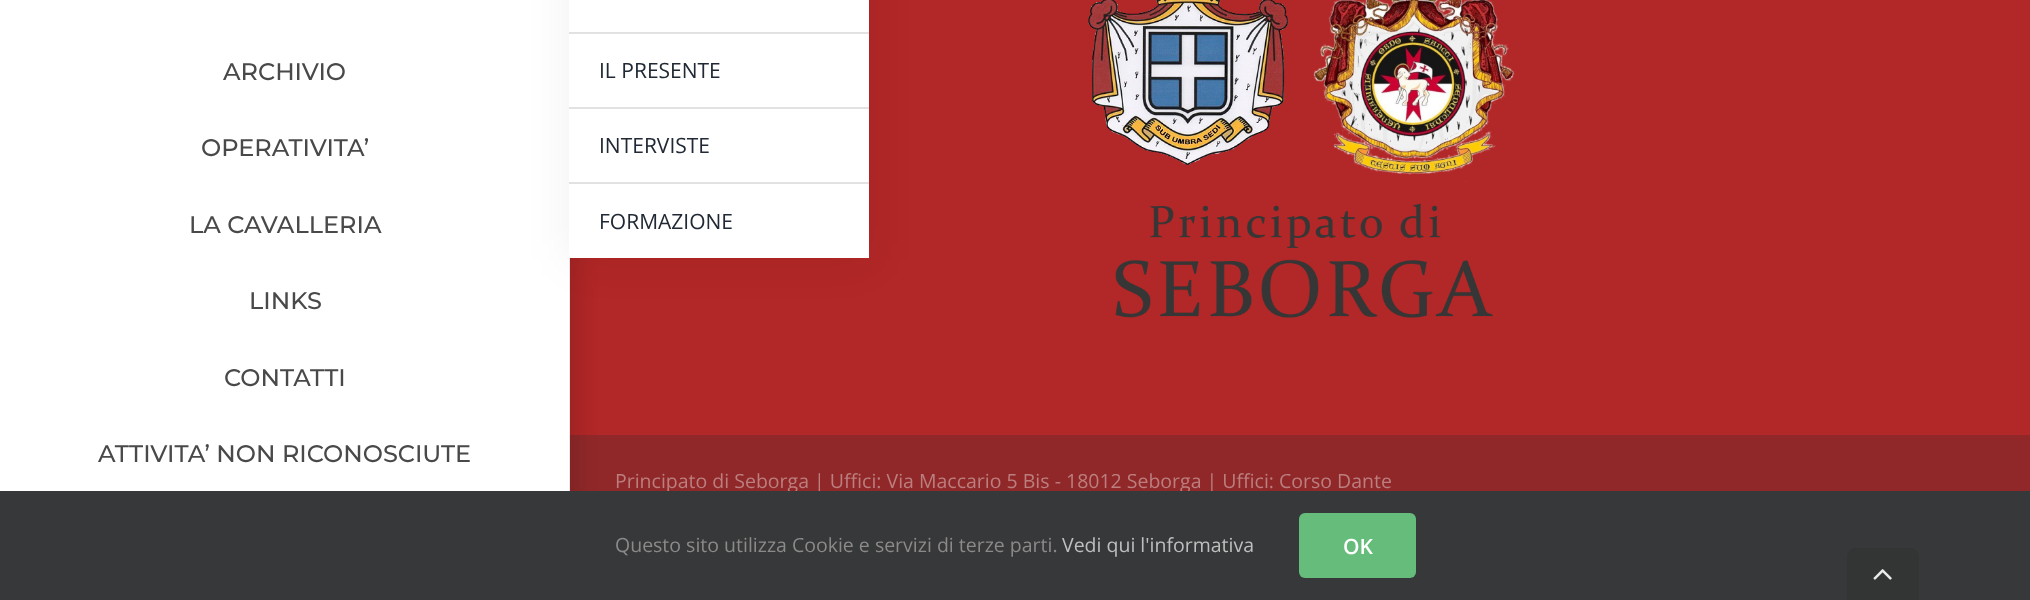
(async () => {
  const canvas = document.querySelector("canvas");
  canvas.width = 2030;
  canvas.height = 600;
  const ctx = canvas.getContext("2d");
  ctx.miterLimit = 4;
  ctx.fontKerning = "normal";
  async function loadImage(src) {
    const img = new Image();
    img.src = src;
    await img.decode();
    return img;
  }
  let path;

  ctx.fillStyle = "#b22727";
  ctx.fillRect(0, 0, 2030, 600);
  ctx.fillStyle = "#ffffff";
  ctx.fillRect(0, 0, 570, 491);
  ctx.fillStyle = "#902829";
  ctx.fillRect(570, 435, 1460, 56);
  ctx.save();
  path = new Path2D("M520 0H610V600H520ZM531 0H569V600H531Z");
  ctx.clip(path, "evenodd");
  ctx.fillStyle = "rgba(0, 0, 0, 0.14)";
  ctx.filter = "blur(11px)";
  ctx.beginPath();
  ctx.rect(554, 8, 22, 585);
  ctx.fill();
  ctx.filter = "none";
  ctx.restore();
  ctx.fillStyle = "rgba(0, 0, 0, 0.06)";
  ctx.filter = "blur(22.5px)";
  ctx.beginPath();
  ctx.rect(570, -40, 300, 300);
  ctx.fill();
  ctx.filter = "none";
  for (const [x, y, w, h, color] of [
    [569, 0, 300, 258, "#ffffff"],
    [569, 32, 300, 2, "#e2e2e2"],
    [569, 107, 300, 2, "#e2e2e2"],
    [569, 182, 300, 2, "#e2e2e2"],
  ]) {
    ctx.fillStyle = color;
    ctx.fillRect(x, y, w, h);
  }
  ctx.drawImage(await loadImage("img/1.png"), 1088, 0, 428, 318);
  ctx.font = "500 24px Montserrat";
  ctx.fillStyle = "#494949";
  ctx.fillText("ARCHIVIO", 223, 80);
  ctx.font = "21px Open Sans";
  ctx.fillStyle = "#212934";
  for (const [text, x, y] of [
    ["IL PRESENTE", 599, 78],
    ["INTERVISTE", 599, 153],
    ["FORMAZIONE", 599, 229],
  ]) {
    ctx.fillText(text, x, y);
  }
  ctx.font = "500 24px Montserrat";
  ctx.fillStyle = "#494949";
  for (const [text, x, y] of [
    ["OPERATIVITA’", 201, 156],
    ["LA CAVALLERIA", 189, 233],
    ["LINKS", 249, 309],
    ["CONTATTI", 224, 386],
    ["ATTIVITA’ NON RICONOSCIUTE", 98, 462],
  ]) {
    ctx.fillText(text, x, y);
  }
  ctx.font = "19.5px Open Sans";
  ctx.fillStyle = "#bc7e7f";
  ctx.fillText("Principato di Seborga | Uffici: Via Maccario 5 Bis - 18012 Seborga | Uffici: Corso Dante", 615, 488);
  ctx.fillStyle = "#363839";
  ctx.fillRect(0, 491, 2030, 109);
  ctx.fillStyle = "#8c8989";
  ctx.fillText("Questo sito utilizza Cookie e servizi di terze parti.", 615, 552);
  ctx.fillStyle = "#bfbfbf";
  ctx.fillText("Vedi qui l'informativa", 1062, 552);
  ctx.fillStyle = "#65bc7b";
  ctx.beginPath();
  ctx.roundRect(1299, 513, 117, 65, 6);
  ctx.fill();
  ctx.font = "600 21px Open Sans";
  ctx.fillStyle = "#ffffff";
  ctx.fillText("OK", 1343, 554);
  ctx.fillStyle = "#333434";
  ctx.beginPath();
  ctx.roundRect(1847, 548, 72, 52, [9, 9, 0, 0]);
  ctx.fill();
  ctx.drawImage(await loadImage("img/2.png"), 1873, 569, 19, 11);
})();
